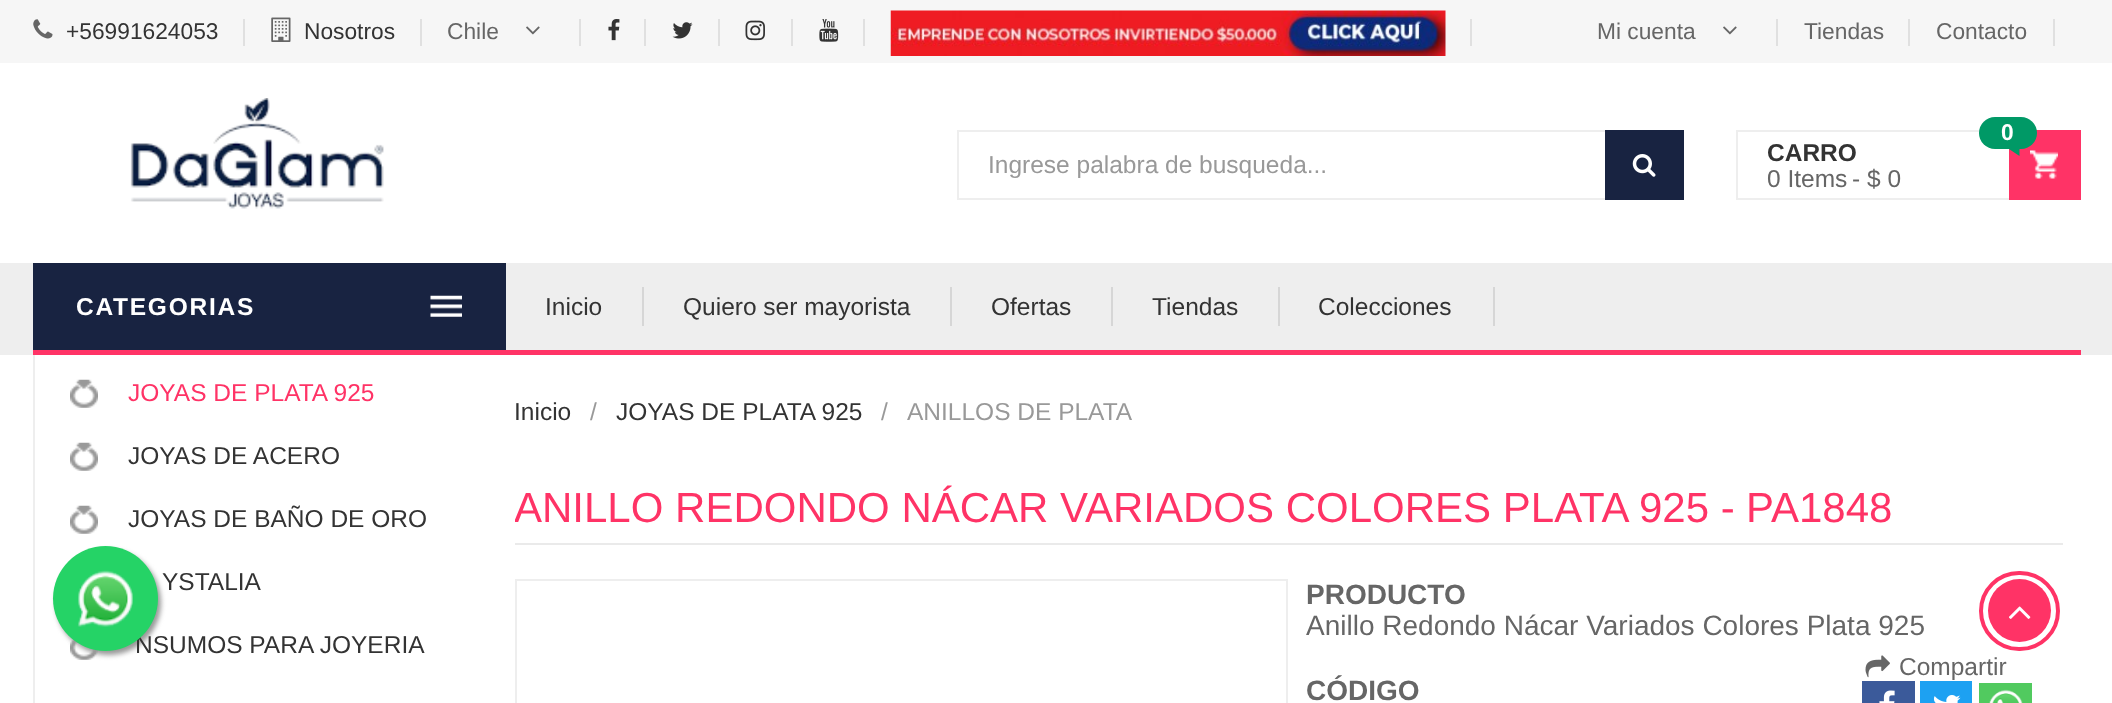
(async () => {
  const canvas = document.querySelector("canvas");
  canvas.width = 2112;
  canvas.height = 703;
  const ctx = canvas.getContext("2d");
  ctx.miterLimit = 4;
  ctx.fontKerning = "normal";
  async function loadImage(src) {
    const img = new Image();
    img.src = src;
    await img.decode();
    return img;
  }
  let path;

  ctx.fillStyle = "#ffffff";
  ctx.fillRect(0, 0, 2112, 703);
  ctx.fillStyle = "#f6f6f6";
  ctx.fillRect(0, 0, 2112, 63);
  ctx.drawImage(await loadImage("img/1.png"), 33, 19, 20, 20);
  ctx.fillStyle = "#e0e0e0";
  ctx.fillRect(243, 19, 2, 27);
  ctx.drawImage(await loadImage("img/2.png"), 271, 17, 20, 25);
  ctx.fillRect(420, 19, 2, 27);
  ctx.drawImage(await loadImage("img/3.png"), 526, 26, 14, 9);
  ctx.fillRect(579, 19, 2, 27);
  ctx.drawImage(await loadImage("img/4.png"), 608, 19, 12, 22);
  ctx.fillRect(644, 19, 2, 27);
  ctx.drawImage(await loadImage("img/5.png"), 672, 22, 21, 17);
  ctx.fillRect(718, 19, 2, 27);
  ctx.drawImage(await loadImage("img/6.png"), 745, 20, 20, 21);
  ctx.fillRect(791, 19, 2, 27);
  ctx.drawImage(await loadImage("img/7.png"), 819, 19, 20, 23);
  ctx.fillRect(863, 19, 2, 27);
  ctx.drawImage(await loadImage("img/8.png"), 890, 10, 556, 46);
  ctx.fillRect(1470, 19, 2, 27);
  ctx.drawImage(await loadImage("img/3.png"), 1723, 26, 14, 9);
  for (const [x, y, w, h, color] of [
    [1776, 19, 2, 27, "#e0e0e0"],
    [1908, 19, 2, 27, "#e0e0e0"],
    [2053, 19, 2, 27, "#e0e0e0"],
  ]) {
    ctx.fillStyle = color;
    ctx.fillRect(x, y, w, h);
  }
  ctx.drawImage(await loadImage("img/9.png"), 130, 98, 254, 111);
  ctx.strokeStyle = "#eeeeee";
  ctx.lineWidth = 2;
  ctx.strokeRect(958, 131, 725, 68);
  ctx.fillStyle = "#182341";
  ctx.fillRect(1605, 130, 79, 70);
  ctx.drawImage(await loadImage("img/10.png"), 1632, 154, 24, 23);
  for (const [x, y, w, h, color] of [
    [1736, 130, 244, 2, "#eeeeee"],
    [1736, 198, 273, 2, "#eeeeee"],
    [1736, 130, 2, 70, "#eeeeee"],
    [2009, 130, 72, 70, "#ff3366"],
  ]) {
    ctx.fillStyle = color;
    ctx.fillRect(x, y, w, h);
  }
  ctx.fillStyle = "#009966";
  ctx.beginPath();
  ctx.roundRect(1979, 117, 58, 32, 16);
  ctx.fill();
  path = new Path2D("M2019.5 149V156L2009 149Z");
  ctx.fill(path);
  ctx.drawImage(await loadImage("img/11.png"), 2030, 150, 28, 29);
  for (const [x, y, w, h, color] of [
    [0, 263, 2112, 92, "#eeeeee"],
    [33, 350, 2048, 5, "#ff3366"],
    [33, 263, 473, 87, "#182341"],
  ]) {
    ctx.fillStyle = color;
    ctx.fillRect(x, y, w, h);
  }
  ctx.drawImage(await loadImage("img/12.png"), 430, 295, 32, 22);
  for (const [x, y, w, h, color] of [
    [642, 287, 2, 39, "#d6d6d6"],
    [950, 287, 2, 39, "#d6d6d6"],
    [1111, 287, 2, 39, "#d6d6d6"],
    [1278, 287, 2, 39, "#d6d6d6"],
    [1493, 287, 2, 39, "#d6d6d6"],
    [33, 355, 2, 348, "#eeeeee"],
  ]) {
    ctx.fillStyle = color;
    ctx.fillRect(x, y, w, h);
  }
  ctx.drawImage(await loadImage("img/13.png"), 70, 379, 28, 29);
  ctx.drawImage(await loadImage("img/13.png"), 70, 442, 28, 29);
  ctx.drawImage(await loadImage("img/13.png"), 70, 505, 28, 29);
  ctx.drawImage(await loadImage("img/14.png"), 70, 638, 28, 22);
  ctx.fillStyle = "#eaeaea";
  ctx.fillRect(515, 543, 1548, 2);
  ctx.strokeRect(516, 580, 771, 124);
  ctx.drawImage(await loadImage("img/15.png"), 1865, 655, 25, 23);
  ctx.fillStyle = "#3b5a9a";
  ctx.fillRect(1862, 681, 53, 22);
  ctx.drawImage(await loadImage("img/16.png"), 1879, 690, 16, 13);
  ctx.fillStyle = "#1da1f2";
  ctx.fillRect(1920, 681, 52, 22);
  ctx.drawImage(await loadImage("img/17.png"), 1933, 695, 28, 8);
  ctx.fillStyle = "#51ca5f";
  ctx.fillRect(1979, 683, 53, 20);
  ctx.drawImage(await loadImage("img/18.png"), 1989, 689, 34, 14);
  ctx.fillStyle = "#999999";
  ctx.filter = "blur(2.5px)";
  ctx.beginPath();
  ctx.roundRect(56, 550, 105, 105, 52.5);
  ctx.fill();
  ctx.filter = "none";
  ctx.beginPath();
  ctx.roundRect(1981, 573, 77, 76, 38);
  ctx.strokeStyle = "#ff3366";
  ctx.lineWidth = 4;
  ctx.stroke();
  ctx.fillStyle = "#ff3366";
  ctx.beginPath();
  ctx.arc(2019.5, 610.5, 31.5, 0, Math.PI * 2);
  ctx.fill();
  ctx.drawImage(await loadImage("img/20.png"), 2009, 606, 22, 13);
  ctx.font = "22.75px Liberation Sans";
  ctx.fillStyle = "#333333";
  ctx.fillText("+56991624053", 66, 39);
  ctx.fillText("Nosotros", 304, 39);
  ctx.fillStyle = "#666666";
  for (const [text, x, y] of [
    ["Chile", 447, 39],
    ["Mi cuenta", 1597, 39],
    ["Tiendas", 1804, 39],
    ["Contacto", 1936, 39],
  ]) {
    ctx.fillText(text, x, y);
  }
  ctx.font = "24.5px Liberation Sans";
  ctx.fillStyle = "#999999";
  ctx.fillText("Ingrese palabra de busqueda...", 988, 173);
  ctx.font = "bold 22.75px Liberation Sans";
  ctx.fillStyle = "#ffffff";
  ctx.fillText("0", 2001, 140);
  ctx.font = "bold 24.5px Liberation Sans";
  ctx.fillStyle = "#333333";
  ctx.fillText("CARRO", 1767, 161);
  ctx.font = "24.5px Liberation Sans";
  ctx.fillStyle = "#666666";
  ctx.fillText("0 Items", 1767, 187);
  ctx.fillText("- $ 0", 1852, 187);
  ctx.letterSpacing = "1.75px";
  ctx.font = "bold 24.5px Liberation Sans";
  ctx.fillStyle = "#ffffff";
  ctx.fillText("CATEGORIAS", 76, 315);
  ctx.letterSpacing = "0px";
  ctx.font = "24.5px Liberation Sans";
  ctx.fillStyle = "#333333";
  for (const [text, x, y] of [
    ["Inicio", 545, 315],
    ["Quiero ser mayorista", 683, 315],
    ["Ofertas", 991, 315],
    ["Tiendas", 1152, 315],
    ["Colecciones", 1318, 315],
  ]) {
    ctx.fillText(text, x, y);
  }
  ctx.fillStyle = "#ff3366";
  ctx.fillText("JOYAS DE PLATA 925", 128, 401);
  ctx.fillStyle = "#333333";
  for (const [text, x, y] of [
    ["JOYAS DE ACERO", 128, 464],
    ["JOYAS DE BAÑO DE ORO", 128, 527],
    ["YSTALIA", 162, 590],
    ["NSUMOS PARA JOYERIA", 135, 653],
    ["Inicio", 514, 420],
  ]) {
    ctx.fillText(text, x, y);
  }
  ctx.fillStyle = "#999999";
  ctx.fillText("/", 590, 420);
  ctx.fillStyle = "#333333";
  ctx.fillText("JOYAS DE PLATA 925", 616, 420);
  ctx.fillStyle = "#999999";
  ctx.fillText("/", 881, 420);
  ctx.fillText("ANILLOS DE PLATA", 907, 420);
  ctx.save();
  ctx.beginPath();
  ctx.rect(515, 473, 1548, 70);
  ctx.clip();
  ctx.font = "42px Liberation Sans";
  ctx.fillStyle = "#ff3366";
  ctx.fillText("ANILLO REDONDO NÁCAR VARIADOS COLORES PLATA 925 -", 514, 522);
  ctx.restore();
  ctx.font = "42px Liberation Sans";
  ctx.fillStyle = "#ff3366";
  ctx.fillText("PA1848", 1746, 522);
  ctx.font = "bold 28px Liberation Sans";
  ctx.fillStyle = "#666666";
  ctx.fillText("PRODUCTO", 1306, 604);
  ctx.font = "28px Liberation Sans";
  ctx.fillText("Anillo Redondo Nácar Variados Colores Plata 925", 1306, 635);
  ctx.font = "24.5px Liberation Sans";
  ctx.fillText("Compartir", 1899, 675);
  ctx.font = "bold 28px Liberation Sans";
  ctx.fillText("CÓDIGO", 1306, 700);
  ctx.fillStyle = "#25d366";
  ctx.beginPath();
  ctx.arc(105.5, 598.5, 52.5, 0, Math.PI * 2);
  ctx.fill();
  ctx.drawImage(await loadImage("img/19.png"), 77, 570, 56, 57);
})();
